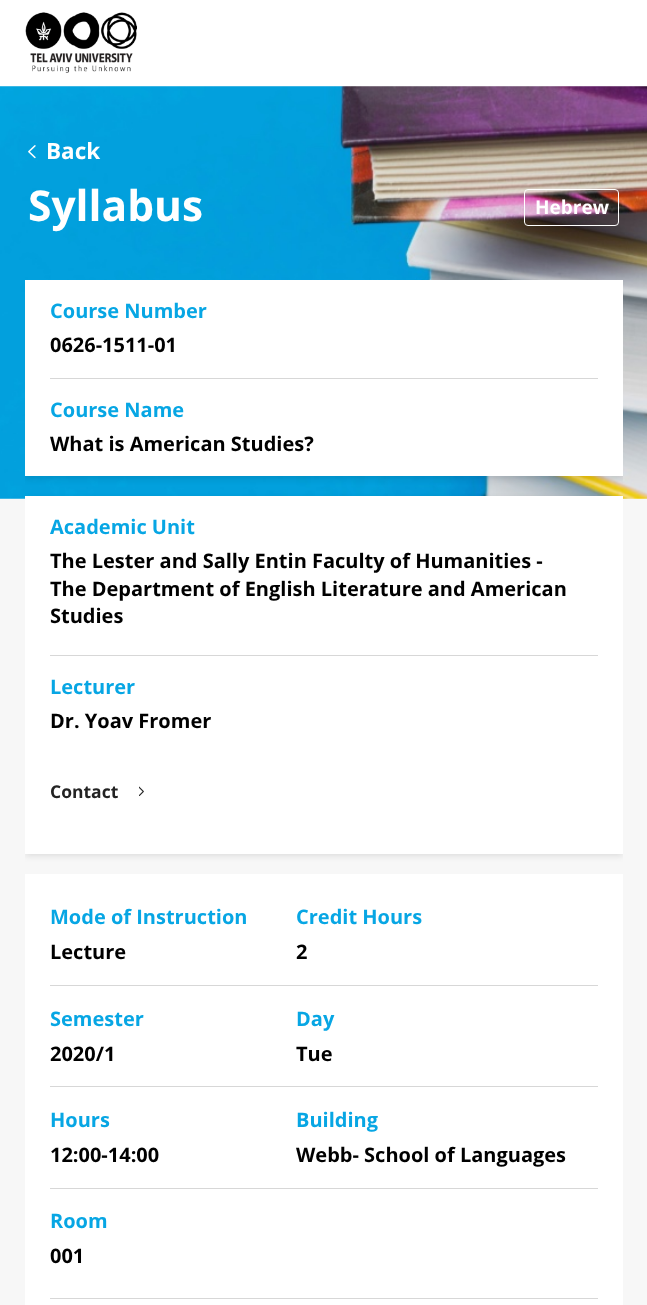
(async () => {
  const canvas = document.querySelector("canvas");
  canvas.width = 647;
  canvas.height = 1305;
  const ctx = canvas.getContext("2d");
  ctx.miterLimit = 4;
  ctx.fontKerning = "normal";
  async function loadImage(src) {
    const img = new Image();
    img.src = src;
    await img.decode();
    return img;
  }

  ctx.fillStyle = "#f7f7f7";
  ctx.fillRect(0, 0, 647, 1305);
  ctx.fillStyle = "#ffffff";
  ctx.fillRect(0, 0, 647, 86);
  ctx.drawImage(await loadImage("img/1.png"), 25, 12, 112, 61);
  ctx.drawImage(await loadImage("img/2.png"), 0, 86, 647, 413);
  ctx.drawImage(await loadImage("img/3.png"), 28, 145, 8, 14);
  ctx.beginPath();
  ctx.roundRect(524.5, 189.5, 94, 36, 3.5);
  ctx.strokeStyle = "#ffffff";
  ctx.stroke();
  ctx.save();
  ctx.beginPath();
  ctx.rect(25, 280, 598, 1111);
  ctx.clip();
  ctx.fillStyle = "rgba(0, 0, 0, 0.1)";
  ctx.filter = "blur(3px)";
  ctx.beginPath();
  ctx.rect(25, 283, 598, 196);
  ctx.fill();
  ctx.filter = "none";
  ctx.restore();
  ctx.fillRect(25, 280, 598, 196);
  ctx.fillStyle = "#d7d7d7";
  ctx.fillRect(50, 378, 548, 1);
  ctx.save();
  ctx.beginPath();
  ctx.rect(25, 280, 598, 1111);
  ctx.clip();
  ctx.fillStyle = "rgba(0, 0, 0, 0.1)";
  ctx.filter = "blur(3px)";
  ctx.beginPath();
  ctx.rect(25, 499, 598, 357);
  ctx.fill();
  ctx.filter = "none";
  ctx.restore();
  ctx.fillStyle = "#ffffff";
  ctx.fillRect(25, 496, 598, 358);
  ctx.fillStyle = "#d7d7d7";
  ctx.fillRect(50, 655, 548, 1);
  ctx.drawImage(await loadImage("img/4.png"), 139, 786, 5, 10);
  for (const [x, y, w, h, color] of [
    [25, 874, 598, 431, "#ffffff"],
    [50, 985, 548, 1, "#d7d7d7"],
    [50, 1086, 548, 1, "#d7d7d7"],
    [50, 1188, 548, 1, "#d7d7d7"],
    [50, 1298, 548, 1, "#d7d7d7"],
  ]) {
    ctx.fillStyle = color;
    ctx.fillRect(x, y, w, h);
  }
  ctx.font = "bold 22.5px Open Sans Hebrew";
  ctx.fillStyle = "#ffffff";
  ctx.fillText("Back", 46, 159);
  ctx.font = "bold 42.5px Open Sans Hebrew";
  ctx.fillText("Syllabus", 28, 221);
  ctx.font = "bold 19px Open Sans Hebrew";
  ctx.fillText("Hebrew", 535, 214);
  ctx.font = "bold 20px Open Sans Hebrew";
  ctx.fillStyle = "#07a6e4";
  ctx.fillText("Course Number", 50, 318);
  ctx.fillStyle = "#000000";
  ctx.fillText("0626-1511-01", 50, 352);
  ctx.fillStyle = "#07a6e4";
  ctx.fillText("Course Name", 50, 417);
  ctx.fillStyle = "#000000";
  ctx.fillText("What is American Studies?", 50, 451);
  ctx.fillStyle = "#07a6e4";
  ctx.fillText("Academic Unit", 50, 534);
  ctx.fillStyle = "#000000";
  for (const [text, x, y] of [
    ["The Lester and Sally Entin Faculty of Humanities -", 50, 568],
    ["The Department of English Literature and American", 50, 596],
    ["Studies", 50, 623],
  ]) {
    ctx.fillText(text, x, y);
  }
  ctx.fillStyle = "#07a6e4";
  ctx.fillText("Lecturer", 50, 694);
  ctx.fillStyle = "#000000";
  ctx.fillText("Dr. Yoav Fromer", 50, 728);
  ctx.font = "bold 17.5px Open Sans Hebrew";
  ctx.fillStyle = "#232323";
  ctx.fillText("Contact", 50, 798);
  ctx.font = "bold 20px Open Sans Hebrew";
  ctx.fillStyle = "#07a6e4";
  ctx.fillText("Mode of Instruction", 50, 924);
  ctx.fillStyle = "#000000";
  ctx.fillText("Lecture", 50, 959);
  ctx.fillStyle = "#07a6e4";
  ctx.fillText("Credit Hours", 296, 924);
  ctx.fillStyle = "#000000";
  ctx.fillText("2", 296, 959);
  ctx.fillStyle = "#07a6e4";
  ctx.fillText("Semester", 50, 1026);
  ctx.fillStyle = "#000000";
  ctx.fillText("2020/1", 50, 1061);
  ctx.fillStyle = "#07a6e4";
  ctx.fillText("Day", 296, 1026);
  ctx.fillStyle = "#000000";
  ctx.fillText("Tue", 296, 1061);
  ctx.fillStyle = "#07a6e4";
  ctx.fillText("Hours", 50, 1127);
  ctx.fillStyle = "#000000";
  ctx.fillText("12:00-14:00", 50, 1162);
  ctx.fillStyle = "#07a6e4";
  ctx.fillText("Building", 296, 1127);
  ctx.fillStyle = "#000000";
  ctx.fillText("Webb- School of Languages", 296, 1162);
  ctx.fillStyle = "#07a6e4";
  ctx.fillText("Room", 50, 1228);
  ctx.fillStyle = "#000000";
  ctx.fillText("001", 50, 1263);
})();
